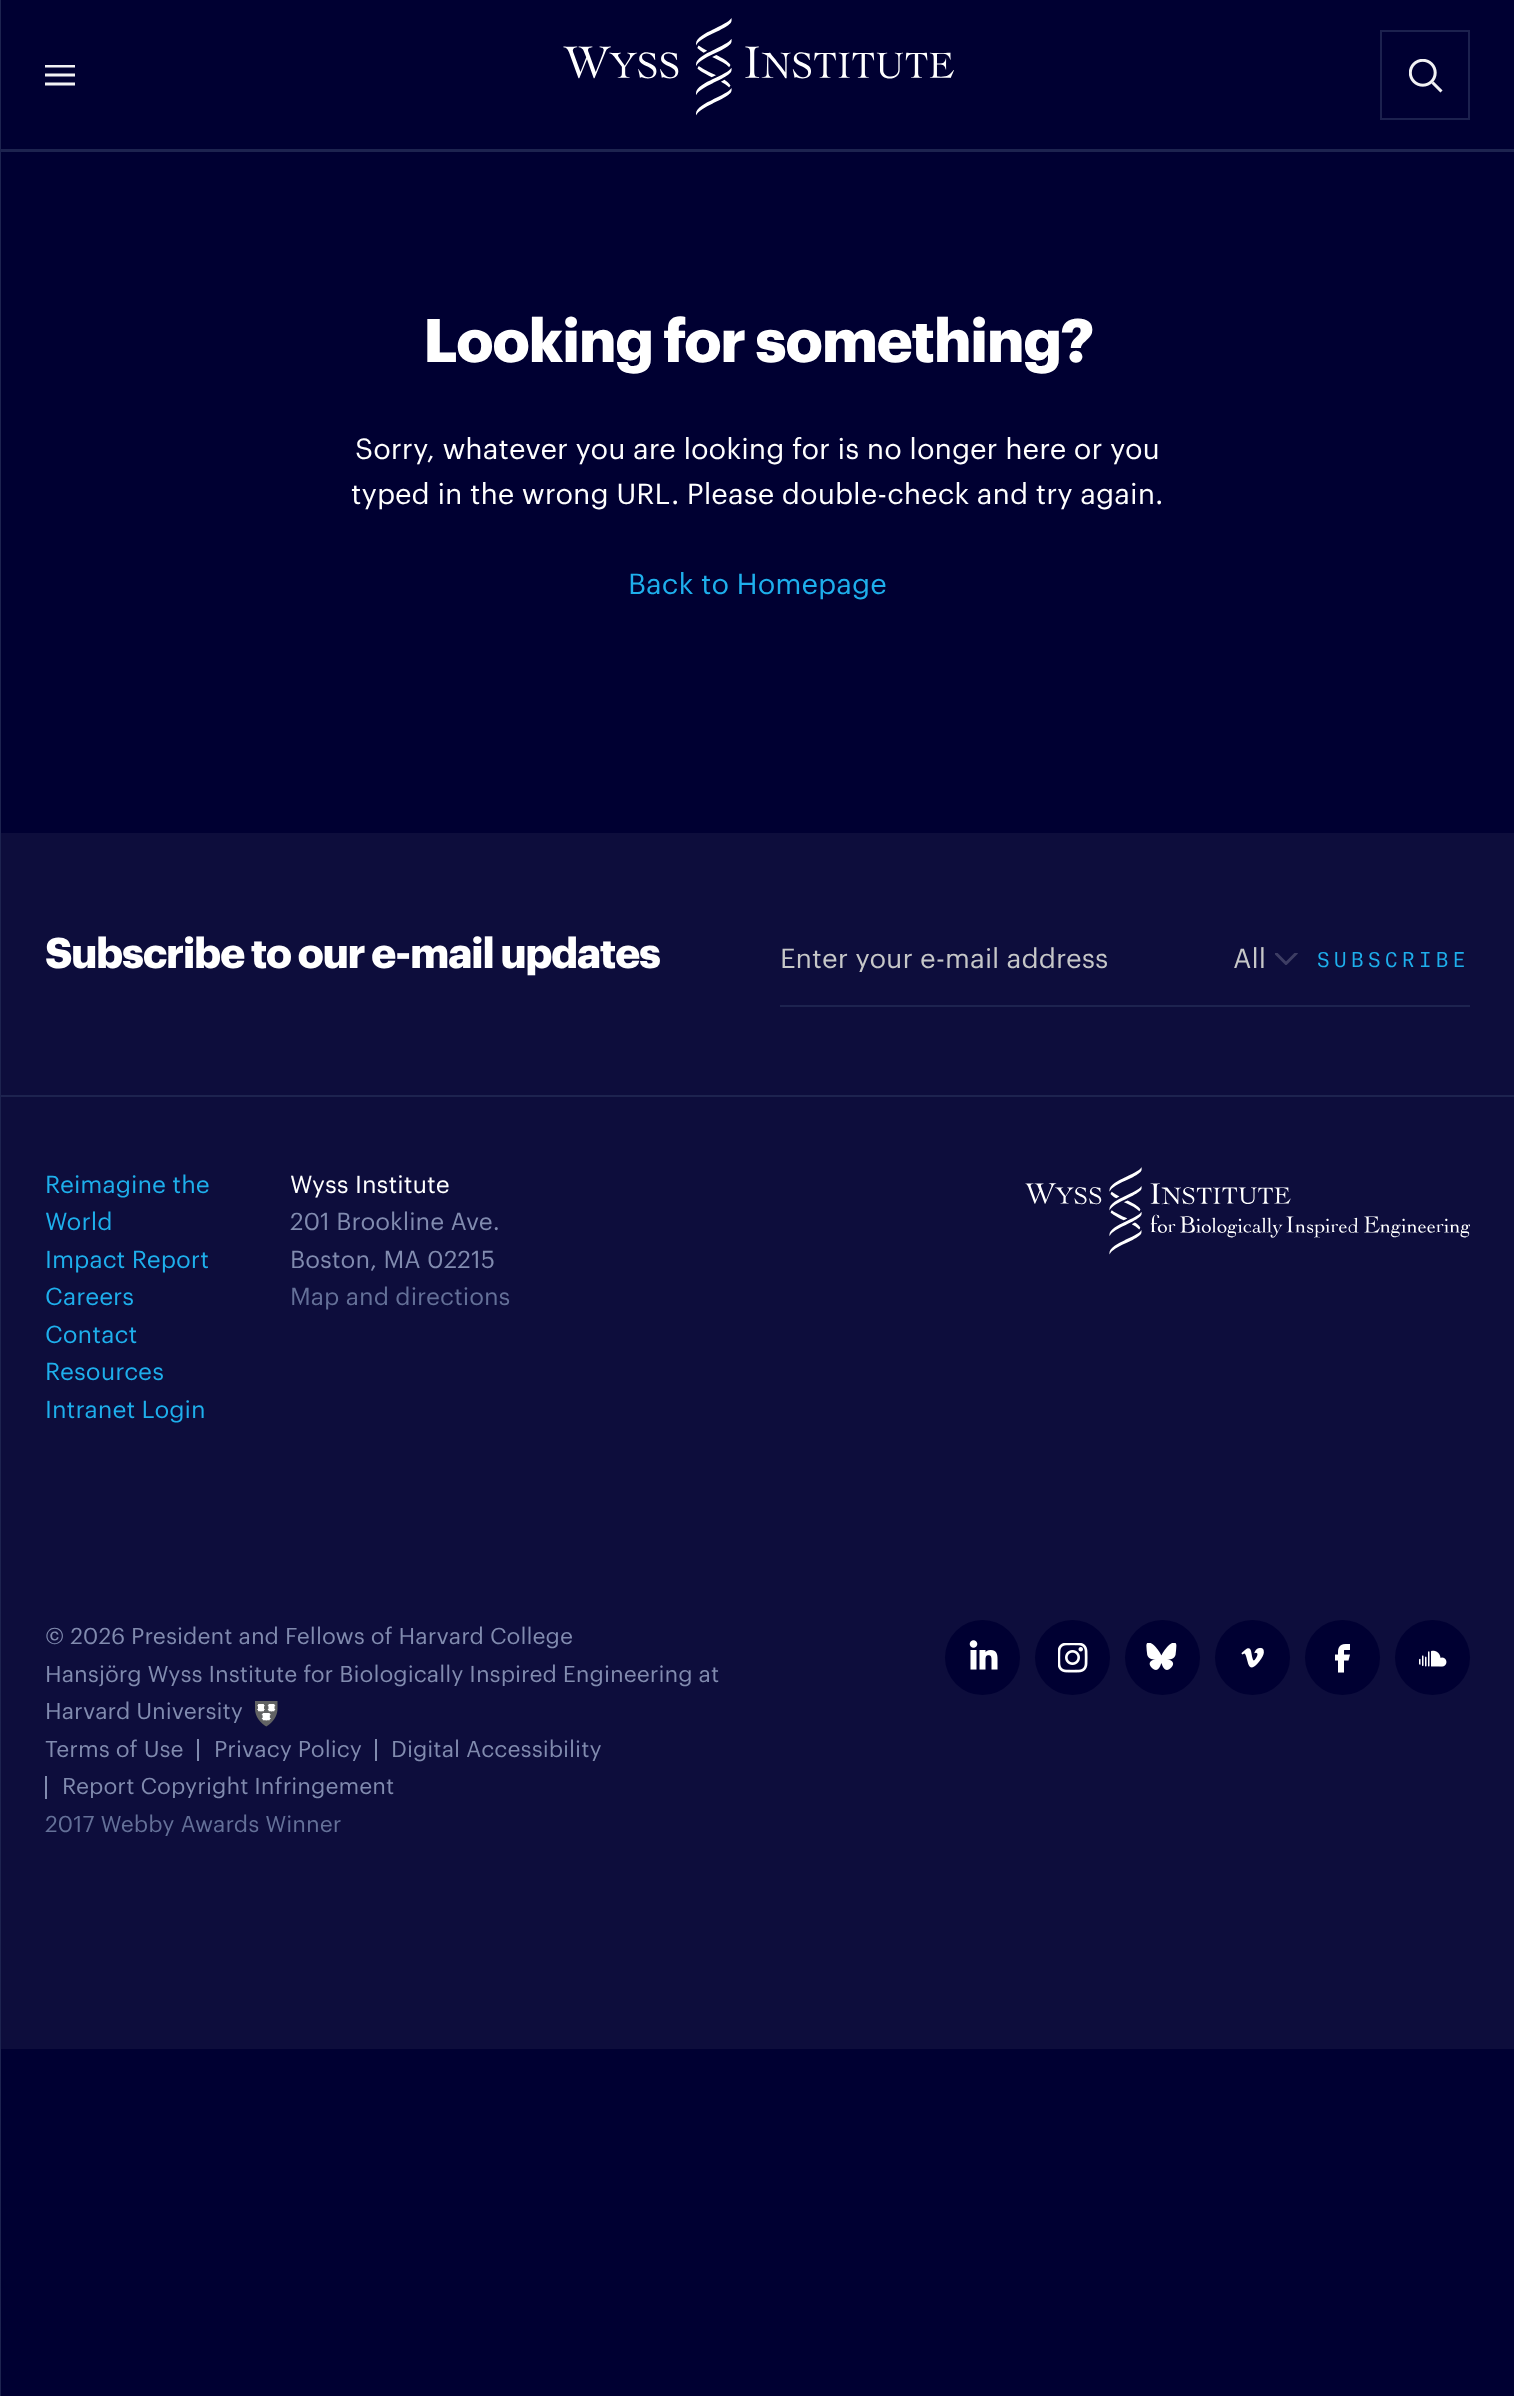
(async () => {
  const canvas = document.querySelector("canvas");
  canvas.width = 1514;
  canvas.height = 2396;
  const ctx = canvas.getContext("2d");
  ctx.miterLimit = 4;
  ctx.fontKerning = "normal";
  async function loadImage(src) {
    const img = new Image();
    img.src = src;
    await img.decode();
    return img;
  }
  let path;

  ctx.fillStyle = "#000032";
  ctx.fillRect(0, 0, 1514, 2396);
  for (const [x, y, w, h, color] of [
    [0, 149, 1514, 3, "#1d234f"],
    [1, 833, 1513, 1216, "#0d0d3c"],
    [0, 1095, 1514, 2, "#1d234f"],
    [0, 0, 1, 2396, "#1d234f"],
  ]) {
    ctx.fillStyle = color;
    ctx.fillRect(x, y, w, h);
  }
  ctx.drawImage(await loadImage("img/1.png"), 45, 65, 30, 21);
  ctx.drawImage(await loadImage("img/2.png"), 563, 18, 391, 98);
  ctx.drawImage(await loadImage("img/3.png"), 1409, 59, 34, 34);
  ctx.strokeStyle = "#1c214e";
  ctx.lineWidth = 2;
  ctx.strokeRect(1381, 31, 88, 88);
  ctx.fillRect(780, 1005, 690, 2);
  ctx.save();
  ctx.beginPath();
  ctx.rect(1275, 953, 23, 12);
  ctx.clip();
  path = new Path2D("M1296 953.5L1286 963.5L1276 953.5");
  ctx.strokeStyle = "#3d3d63";
  ctx.lineWidth = 3;
  ctx.lineCap = "square";
  ctx.stroke(path);
  ctx.restore();
  ctx.drawImage(await loadImage("img/4.png"), 1025, 1167, 445, 88);
  ctx.drawImage(await loadImage("img/5.png"), 255, 1701, 23, 26);
  for (const [x, y, w, h, color] of [
    [197, 1739, 2, 22, "#818baf"],
    [375, 1739, 2, 22, "#818baf"],
    [45, 1776, 2, 23, "#818baf"],
  ]) {
    ctx.fillStyle = color;
    ctx.fillRect(x, y, w, h);
  }
  ctx.fillStyle = "#000032";
  ctx.beginPath();
  ctx.arc(982.5, 1657.5, 37.5, 0, Math.PI * 2);
  ctx.fill();
  ctx.drawImage(await loadImage("img/6.png"), 969, 1640, 29, 30);
  ctx.beginPath();
  ctx.arc(1072.5, 1657.5, 37.5, 0, Math.PI * 2);
  ctx.fill();
  ctx.drawImage(await loadImage("img/7.png"), 1058, 1643, 30, 30);
  ctx.beginPath();
  ctx.arc(1162.5, 1657.5, 37.5, 0, Math.PI * 2);
  ctx.fill();
  ctx.drawImage(await loadImage("img/8.png"), 1146, 1643, 31, 27);
  ctx.beginPath();
  ctx.arc(1252.5, 1657.5, 37.5, 0, Math.PI * 2);
  ctx.fill();
  ctx.drawImage(await loadImage("img/9.png"), 1241, 1647, 23, 21);
  ctx.beginPath();
  ctx.arc(1342.5, 1657.5, 37.5, 0, Math.PI * 2);
  ctx.fill();
  ctx.drawImage(await loadImage("img/10.png"), 1335, 1644, 15, 29);
  ctx.beginPath();
  ctx.arc(1432.5, 1657.5, 37.5, 0, Math.PI * 2);
  ctx.fill();
  ctx.drawImage(await loadImage("img/11.png"), 1419, 1650, 28, 17);
  ctx.letterSpacing = "-1.5px";
  ctx.font = "bold 60px Graphik";
  ctx.fillStyle = "#ffffff";
  ctx.fillText("Looking for something?", 423, 362);
  ctx.letterSpacing = "0px";
  ctx.font = "28.5px Graphik";
  ctx.fillText("Sorry, whatever you are looking for is no longer here or you", 355, 459);
  ctx.fillText("typed in the wrong URL. Please double-check and try again.", 351, 504);
  ctx.fillStyle = "#1eafec";
  ctx.fillText("Back to Homepage", 628, 594);
  ctx.letterSpacing = "-1.5px";
  ctx.font = "bold 42px Graphik";
  ctx.fillStyle = "#ffffff";
  ctx.fillText("Subscribe to our e-mail updates", 45, 968);
  ctx.save();
  ctx.beginPath();
  ctx.rect(780, 947, 390, 25);
  ctx.clip();
  ctx.letterSpacing = "0px";
  ctx.font = "27px Graphik";
  ctx.fillStyle = "#c6c7c8";
  ctx.fillText("Enter your e-mail address", 780, 968);
  ctx.restore();
  ctx.letterSpacing = "0px";
  ctx.font = "27px Graphik";
  ctx.fillStyle = "#c6c7c8";
  ctx.fillText("All", 1233, 968);
  ctx.letterSpacing = "4.5px";
  ctx.font = "19.5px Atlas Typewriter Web";
  ctx.fillStyle = "#1eafec";
  ctx.fillText("SUBSCRIBE", 1317, 967);
  ctx.letterSpacing = "0px";
  ctx.font = "24px Graphik";
  for (const [text, x, y] of [
    ["Reimagine the", 45, 1193],
    ["World", 45, 1230],
    ["Impact Report", 45, 1268],
    ["Careers", 45, 1305],
    ["Contact", 45, 1343],
    ["Resources", 45, 1380],
    ["Intranet Login", 45, 1418],
  ]) {
    ctx.fillText(text, x, y);
  }
  ctx.fillStyle = "#ffffff";
  ctx.fillText("Wyss Institute", 290, 1193);
  ctx.fillStyle = "#818baf";
  ctx.fillText("201 Brookline Ave.", 290, 1230);
  ctx.fillText("Boston, MA 02215", 290, 1268);
  ctx.fillStyle = "#647098";
  ctx.fillText("Map and directions", 290, 1305);
  ctx.font = "22.5px Graphik";
  ctx.fillStyle = "#818baf";
  for (const [text, x, y] of [
    ["© 2026 President and Fellows of Harvard College", 45, 1644],
    ["Hansjörg Wyss Institute for Biologically Inspired Engineering at", 45, 1682],
    ["Harvard University", 45, 1719],
    ["Terms of Use", 45, 1757],
    ["Privacy Policy", 214, 1757],
    ["Digital Accessibility", 391, 1757],
    ["Report Copyright Infringement", 62, 1794],
  ]) {
    ctx.fillText(text, x, y);
  }
  ctx.fillStyle = "#647098";
  ctx.fillText("2017 Webby Awards Winner", 45, 1832);
})();
